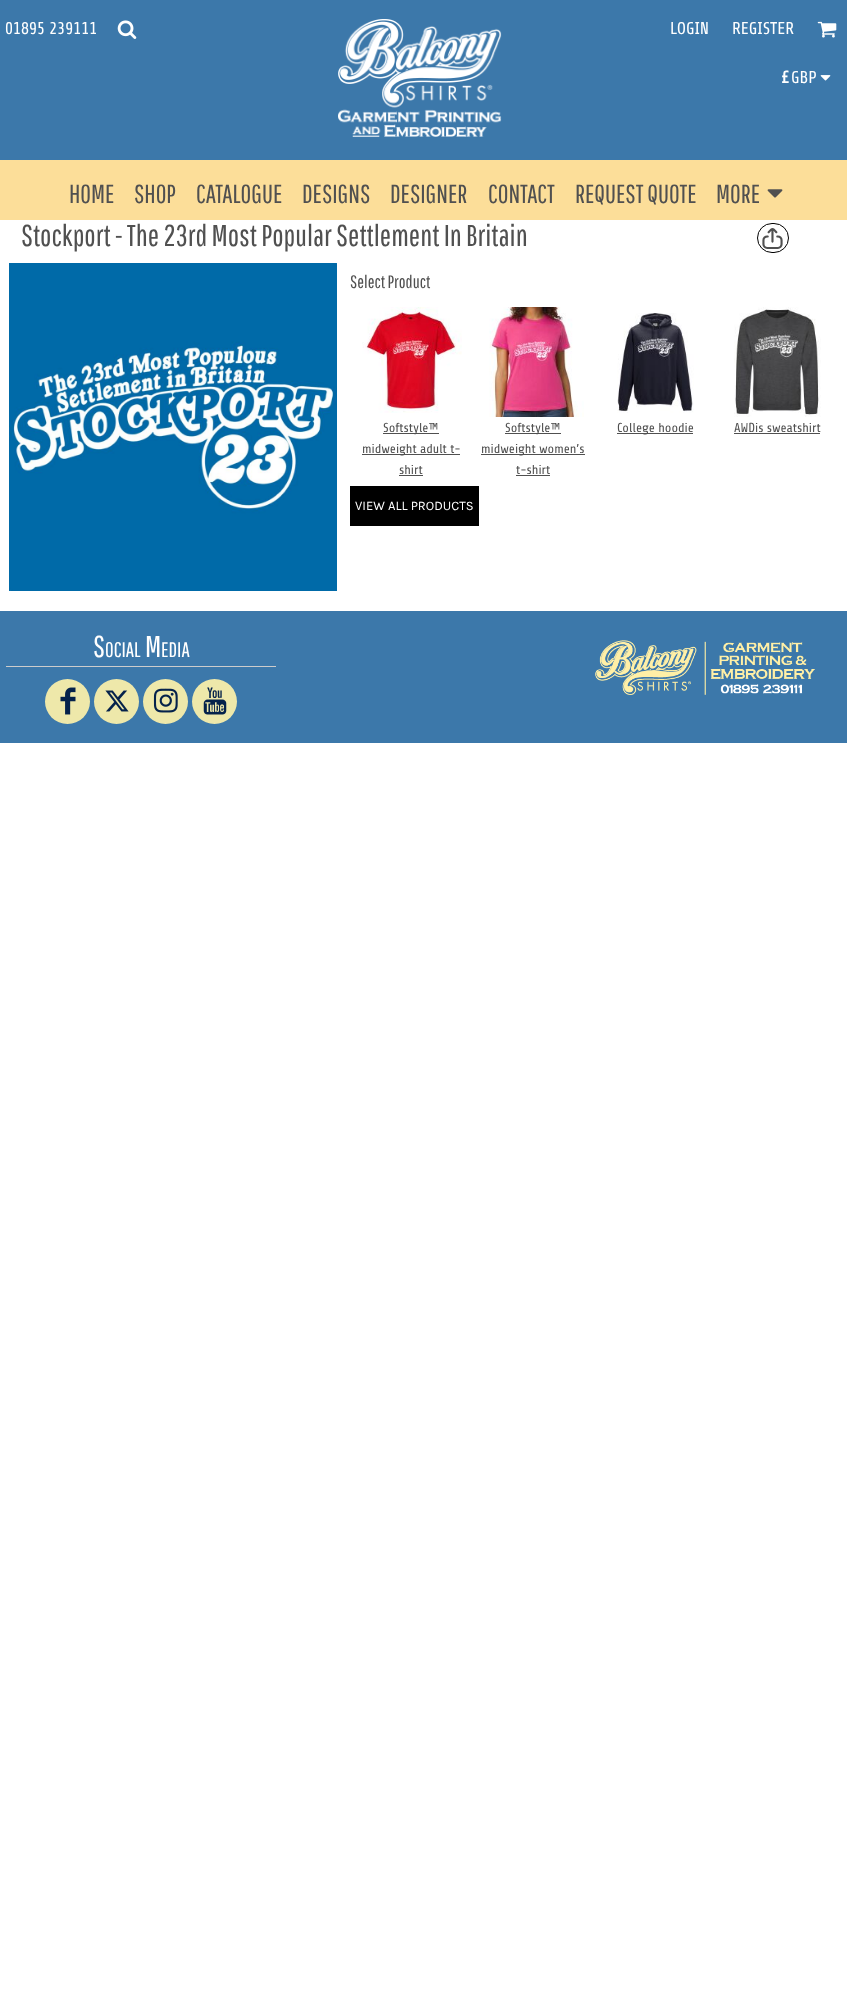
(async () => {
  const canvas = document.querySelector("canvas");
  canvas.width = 847;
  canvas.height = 1999;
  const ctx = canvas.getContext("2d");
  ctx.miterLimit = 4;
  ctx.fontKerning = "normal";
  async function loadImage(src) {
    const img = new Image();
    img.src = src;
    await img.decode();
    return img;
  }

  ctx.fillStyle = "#ffffff";
  ctx.fillRect(0, 0, 847, 1999);
  ctx.fillStyle = "#3c78aa";
  ctx.fillRect(0, 0, 847, 160);
  ctx.drawImage(await loadImage("img/1.png"), 117, 20, 20, 19);
  ctx.drawImage(await loadImage("img/2.png"), 338, 19, 164, 118);
  ctx.drawImage(await loadImage("img/3.png"), 817, 21, 20, 17);
  ctx.drawImage(await loadImage("img/4.png"), 820, 75, 11, 6);
  ctx.fillStyle = "#fcde99";
  ctx.fillRect(0, 160, 847, 60);
  ctx.drawImage(await loadImage("img/5.png"), 767, 189, 16, 9);
  ctx.beginPath();
  ctx.roundRect(757.5, 223.5, 31, 29, 14.5);
  ctx.strokeStyle = "#000000";
  ctx.stroke();
  ctx.drawImage(await loadImage("img/6.png"), 9, 263, 328, 328);
  ctx.drawImage(await loadImage("img/7.png"), 362, 307, 100, 106);
  for (const [x, y, w, h, color] of [
    [383, 433, 56, 1, "#505050"],
    [362, 454, 98, 1, "#505050"],
    [399, 475, 24, 1, "#505050"],
  ]) {
    ctx.fillStyle = color;
    ctx.fillRect(x, y, w, h);
  }
  ctx.drawImage(await loadImage("img/8.png"), 489, 307, 95, 110);
  for (const [x, y, w, h, color] of [
    [505, 433, 56, 1, "#505050"],
    [481, 454, 104, 1, "#505050"],
    [516, 475, 34, 1, "#505050"],
  ]) {
    ctx.fillStyle = color;
    ctx.fillRect(x, y, w, h);
  }
  ctx.drawImage(await loadImage("img/9.png"), 617, 313, 77, 100);
  ctx.fillRect(617, 433, 76, 1);
  ctx.drawImage(await loadImage("img/10.png"), 734, 307, 87, 110);
  for (const [x, y, w, h, color] of [
    [734, 433, 86, 1, "#505050"],
    [350, 486, 129, 40, "#000000"],
    [0, 611, 847, 132, "#3c78aa"],
    [6, 666, 270, 1, "#cccccc"],
  ]) {
    ctx.fillStyle = color;
    ctx.fillRect(x, y, w, h);
  }
  ctx.fillStyle = "#eee8aa";
  ctx.beginPath();
  ctx.arc(67.5, 701.5, 22.5, 0, Math.PI * 2);
  ctx.fill();
  ctx.drawImage(await loadImage("img/11.png"), 60, 687, 16, 28);
  ctx.beginPath();
  ctx.arc(116.5, 701.5, 22.5, 0, Math.PI * 2);
  ctx.fill();
  ctx.drawImage(await loadImage("img/12.png"), 105, 690, 24, 22);
  ctx.beginPath();
  ctx.arc(165.5, 701.5, 22.5, 0, Math.PI * 2);
  ctx.fill();
  ctx.drawImage(await loadImage("img/13.png"), 153, 688, 25, 25);
  ctx.beginPath();
  ctx.arc(214.5, 701.5, 22.5, 0, Math.PI * 2);
  ctx.fill();
  ctx.drawImage(await loadImage("img/14.png"), 595, 640, 220, 55);
  ctx.font = "17px Share";
  ctx.fillStyle = "#ffffff";
  for (const [text, x, y] of [
    ["01895 239111", 5, 34],
    ["LOGIN", 670, 34],
    ["REGISTER", 732, 34],
  ]) {
    ctx.fillText(text, x, y);
  }
  ctx.font = "bold 17px Share";
  ctx.fillText("£", 781, 83);
  ctx.font = "17px Share";
  ctx.fillText("GBP", 791, 83);
  ctx.font = "26px Pathway Gothic One";
  ctx.fillStyle = "#505050";
  for (const [text, x, y] of [
    ["HOME", 69, 203],
    ["SHOP", 134, 203],
    ["CATALOGUE", 196, 203],
    ["DESIGNS", 302, 203],
    ["DESIGNER", 390, 203],
    ["CONTACT", 488, 203],
    ["REQUEST QUOTE", 575, 203],
    ["MORE", 716, 203],
  ]) {
    ctx.fillText(text, x, y);
  }
  ctx.font = "30px Pathway Gothic One";
  ctx.fillText("Stockport - The 23rd Most Popular Settlement In Britain", 21, 246);
  ctx.font = "23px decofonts";
  ctx.fillText("/", 761, 250);
  ctx.font = "18px Pathway Gothic One";
  ctx.fillText("Select Product", 350, 288);
  ctx.font = "13px Share";
  for (const [text, x, y] of [
    ["Softstyle™", 383, 432],
    ["midweight adult t-", 362, 453],
    ["shirt", 399, 474],
    ["Softstyle™", 505, 432],
    ["midweight women’s", 481, 453],
    ["t-shirt", 516, 474],
    ["College hoodie", 617, 432],
    ["AWDis sweatshirt", 734, 432],
  ]) {
    ctx.fillText(text, x, y);
  }
  ctx.font = "13px Karla";
  ctx.fillStyle = "#ffffff";
  ctx.fillText("VIEW ALL PRODUCTS", 355, 510);
  ctx.font = "30px Pathway Gothic One";
  ctx.fillText("S", 93, 657);
  ctx.font = "21px Pathway Gothic One";
  ctx.fillText("OCIAL", 105, 657);
  ctx.font = "30px Pathway Gothic One";
  ctx.fillText("M", 145, 657);
  ctx.font = "21px Pathway Gothic One";
  ctx.fillText("EDIA", 161, 657);
  ctx.font = "30px decofonts";
  ctx.fillStyle = "#05224b";
  ctx.fillText("1", 200, 716);
})();
